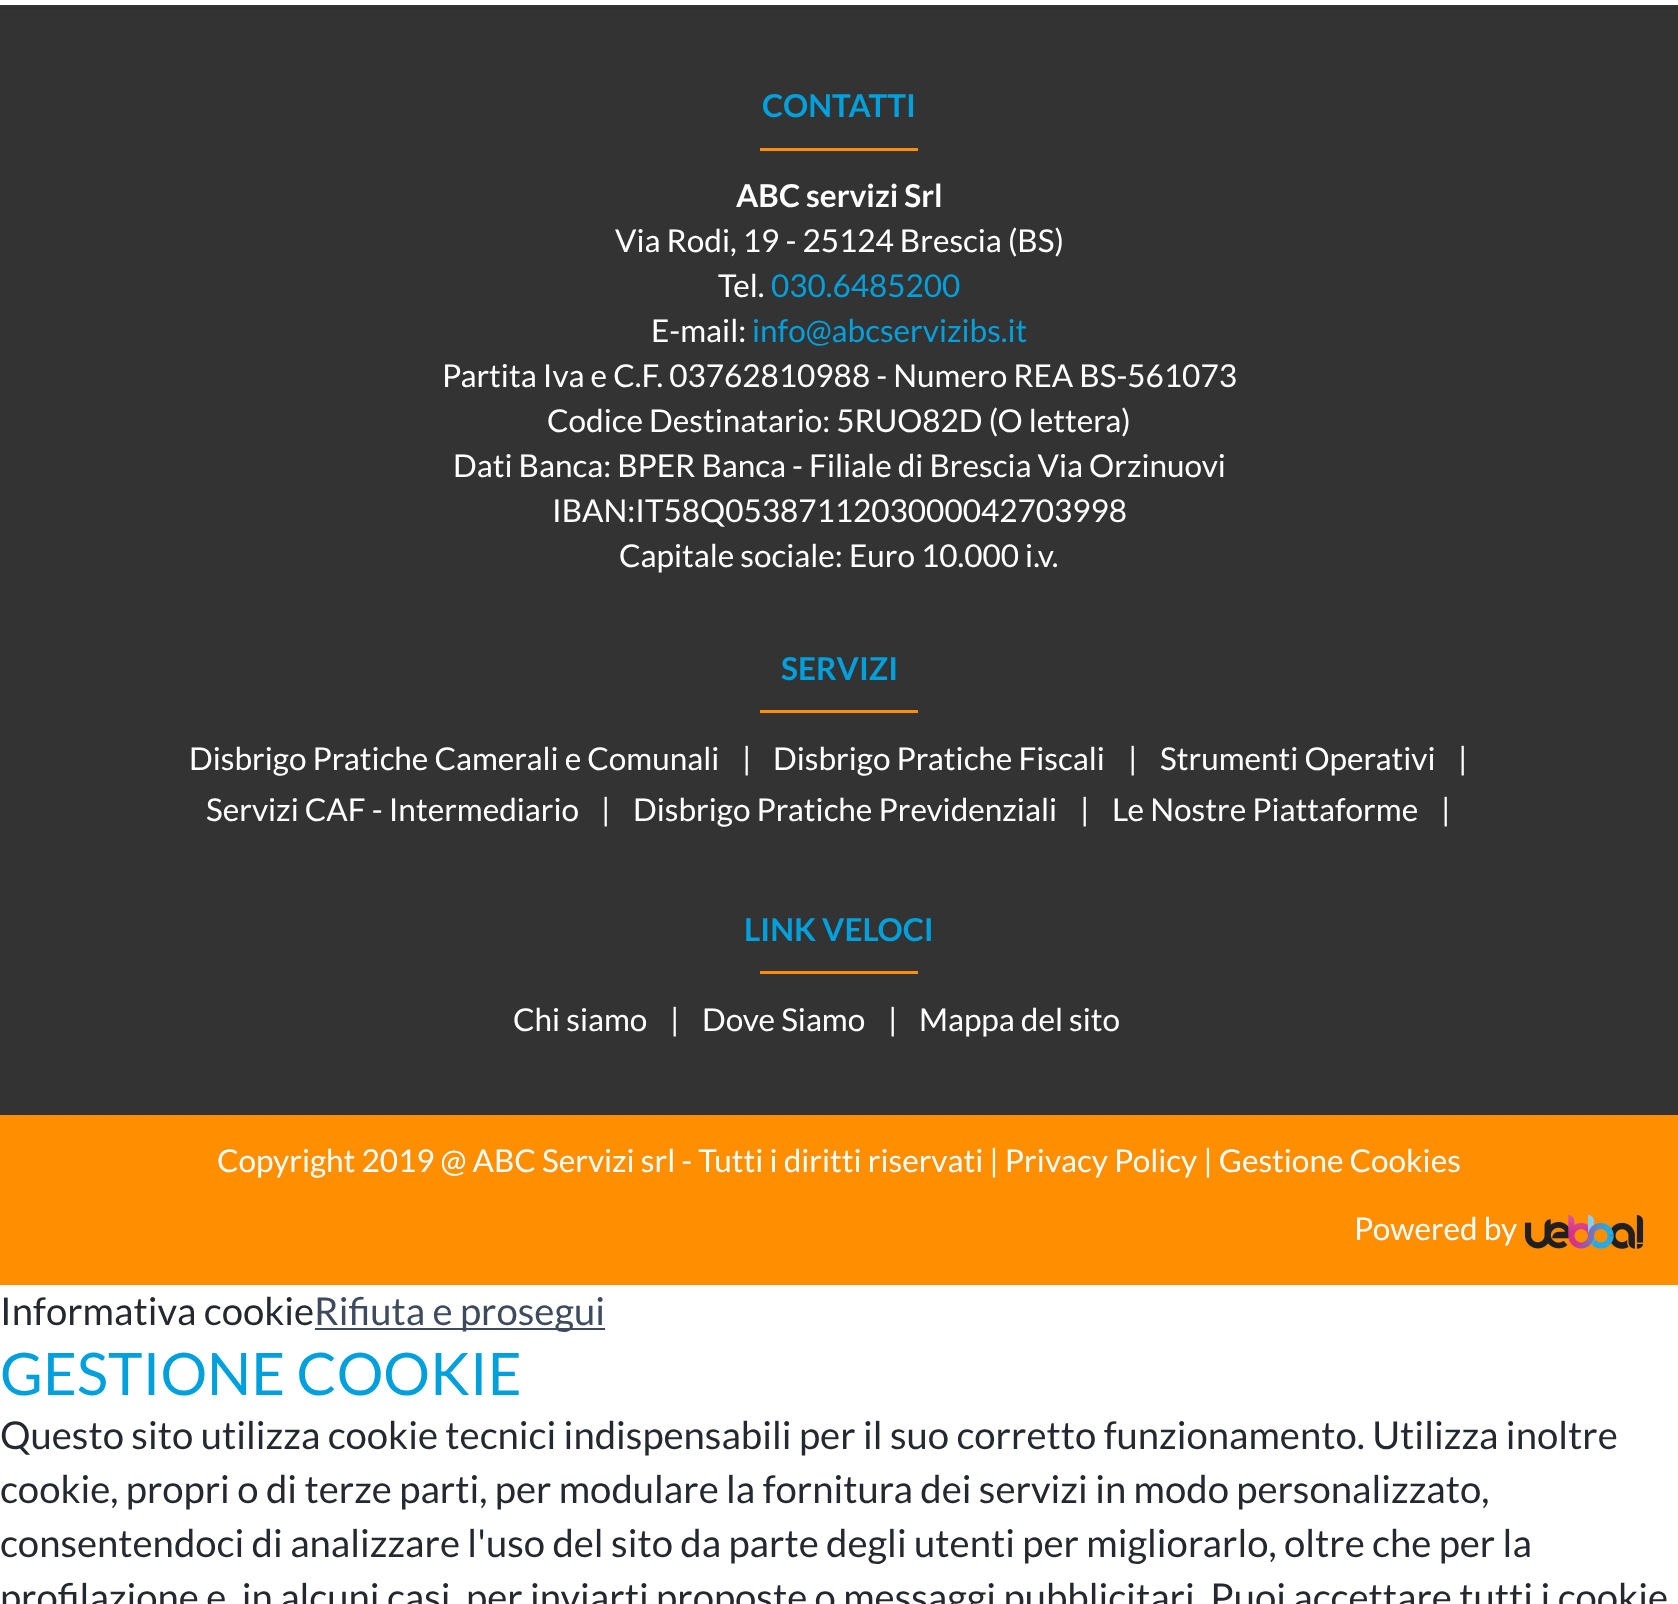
(async () => {
  const canvas = document.querySelector("canvas");
  canvas.width = 1678;
  canvas.height = 1604;
  const ctx = canvas.getContext("2d");
  ctx.miterLimit = 4;
  ctx.fontKerning = "normal";
  async function loadImage(src) {
    const img = new Image();
    img.src = src;
    await img.decode();
    return img;
  }

  ctx.fillStyle = "#ffffff";
  ctx.fillRect(0, 0, 1678, 1604);
  for (const [x, y, w, h, color] of [
    [0, 5, 1678, 1110, "#333333"],
    [0, 7, 1678, 2, "#2d2f31"],
    [760, 148, 158, 3, "#ff8e01"],
    [760, 710, 158, 3, "#ff8e01"],
    [760, 971, 158, 3, "#ff8e01"],
    [0, 1115, 1678, 170, "#ff8e00"],
  ]) {
    ctx.fillStyle = color;
    ctx.fillRect(x, y, w, h);
  }
  ctx.drawImage(await loadImage("img/1.png"), 1524, 1215, 120, 34);
  ctx.fillStyle = "#3e4b5f";
  ctx.fillRect(315, 1328, 290, 2);
  ctx.font = "bold 31.5px Lato";
  ctx.fillStyle = "#00a0dc";
  ctx.fillText("CONTATTI", 762, 117);
  ctx.fillStyle = "#ffffff";
  ctx.fillText("ABC servizi Srl", 736, 207);
  ctx.font = "31.5px Lato";
  ctx.fillText("Via Rodi, 19 - 25124 Brescia (BS)", 615, 252);
  ctx.fillText("Tel.", 718, 297);
  ctx.fillStyle = "#00a0dc";
  ctx.fillText("030.6485200", 771, 297);
  ctx.fillStyle = "#ffffff";
  ctx.fillText("E-mail:", 651, 342);
  ctx.fillStyle = "#00a0dc";
  ctx.fillText("info@abcservizibs.it", 752, 342);
  ctx.fillStyle = "#ffffff";
  for (const [text, x, y] of [
    ["Partita Iva e C.F. 03762810988 - Numero REA BS-561073", 442, 387],
    ["Codice Destinatario: 5RUO82D (O lettera)", 547, 432],
    ["Dati Banca: BPER Banca - Filiale di Brescia Via Orzinuovi", 453, 477],
    ["IBAN:IT58Q0538711203000042703998", 552, 522],
    ["Capitale sociale: Euro 10.000 i.v.", 619, 567],
  ]) {
    ctx.fillText(text, x, y);
  }
  ctx.font = "bold 31.5px Lato";
  ctx.fillStyle = "#00a0dc";
  ctx.fillText("SERVIZI", 781, 680);
  ctx.font = "31.5px Lato";
  ctx.fillStyle = "#ffffff";
  for (const [text, x, y] of [
    ["Disbrigo Pratiche Camerali e Comunali", 189, 770],
    ["|", 742, 770],
    ["Disbrigo Pratiche Fiscali", 773, 770],
    ["|", 1128, 770],
    ["Strumenti Operativi", 1160, 770],
    ["|", 1458, 770],
    ["Servizi CAF - Intermediario", 206, 821],
    ["|", 601, 821],
    ["Disbrigo Pratiche Previdenziali", 633, 821],
    ["|", 1080, 821],
    ["Le Nostre Piattaforme", 1112, 821],
    ["|", 1441, 821],
  ]) {
    ctx.fillText(text, x, y);
  }
  ctx.font = "bold 31.5px Lato";
  ctx.fillStyle = "#00a0dc";
  ctx.fillText("LINK VELOCI", 744, 941);
  ctx.font = "31.5px Lato";
  ctx.fillStyle = "#ffffff";
  for (const [text, x, y] of [
    ["Chi siamo", 513, 1031],
    ["|", 670, 1031],
    ["Dove Siamo", 702, 1031],
    ["|", 888, 1031],
    ["Mappa del sito", 919, 1031],
    ["Copyright 2019 @ ABC Servizi srl - Tutti i diritti riservati | Privacy Policy | Gestione Cookies", 217, 1172],
    ["Powered by", 1354, 1240],
  ]) {
    ctx.fillText(text, x, y);
  }
  ctx.font = "38.25px Lato";
  ctx.fillStyle = "#25292f";
  ctx.fillText("Informativa cookie", 0, 1325);
  ctx.fillStyle = "#3e4b5f";
  ctx.fillText("Rifiuta e prosegui", 314, 1325);
  ctx.font = "58.5px Lato";
  ctx.fillStyle = "#00a0dc";
  ctx.fillText("GESTIONE COOKIE", 0, 1395);
  ctx.font = "38.25px Lato";
  ctx.fillStyle = "#25292f";
  for (const [text, x, y] of [
    ["Questo sito utilizza cookie tecnici indispensabili per il suo corretto funzionamento. Utilizza inoltre", 0, 1449],
    ["cookie, propri o di terze parti, per modulare la fornitura dei servizi in modo personalizzato,", 0, 1503],
    ["consentendoci di analizzare l'uso del sito da parte degli utenti per migliorarlo, oltre che per la", 0, 1557],
    ["profilazione e, in alcuni casi, per inviarti proposte o messaggi pubblicitari. Puoi accettare tutti i cookie", 0, 1611],
  ]) {
    ctx.fillText(text, x, y);
  }
})();
